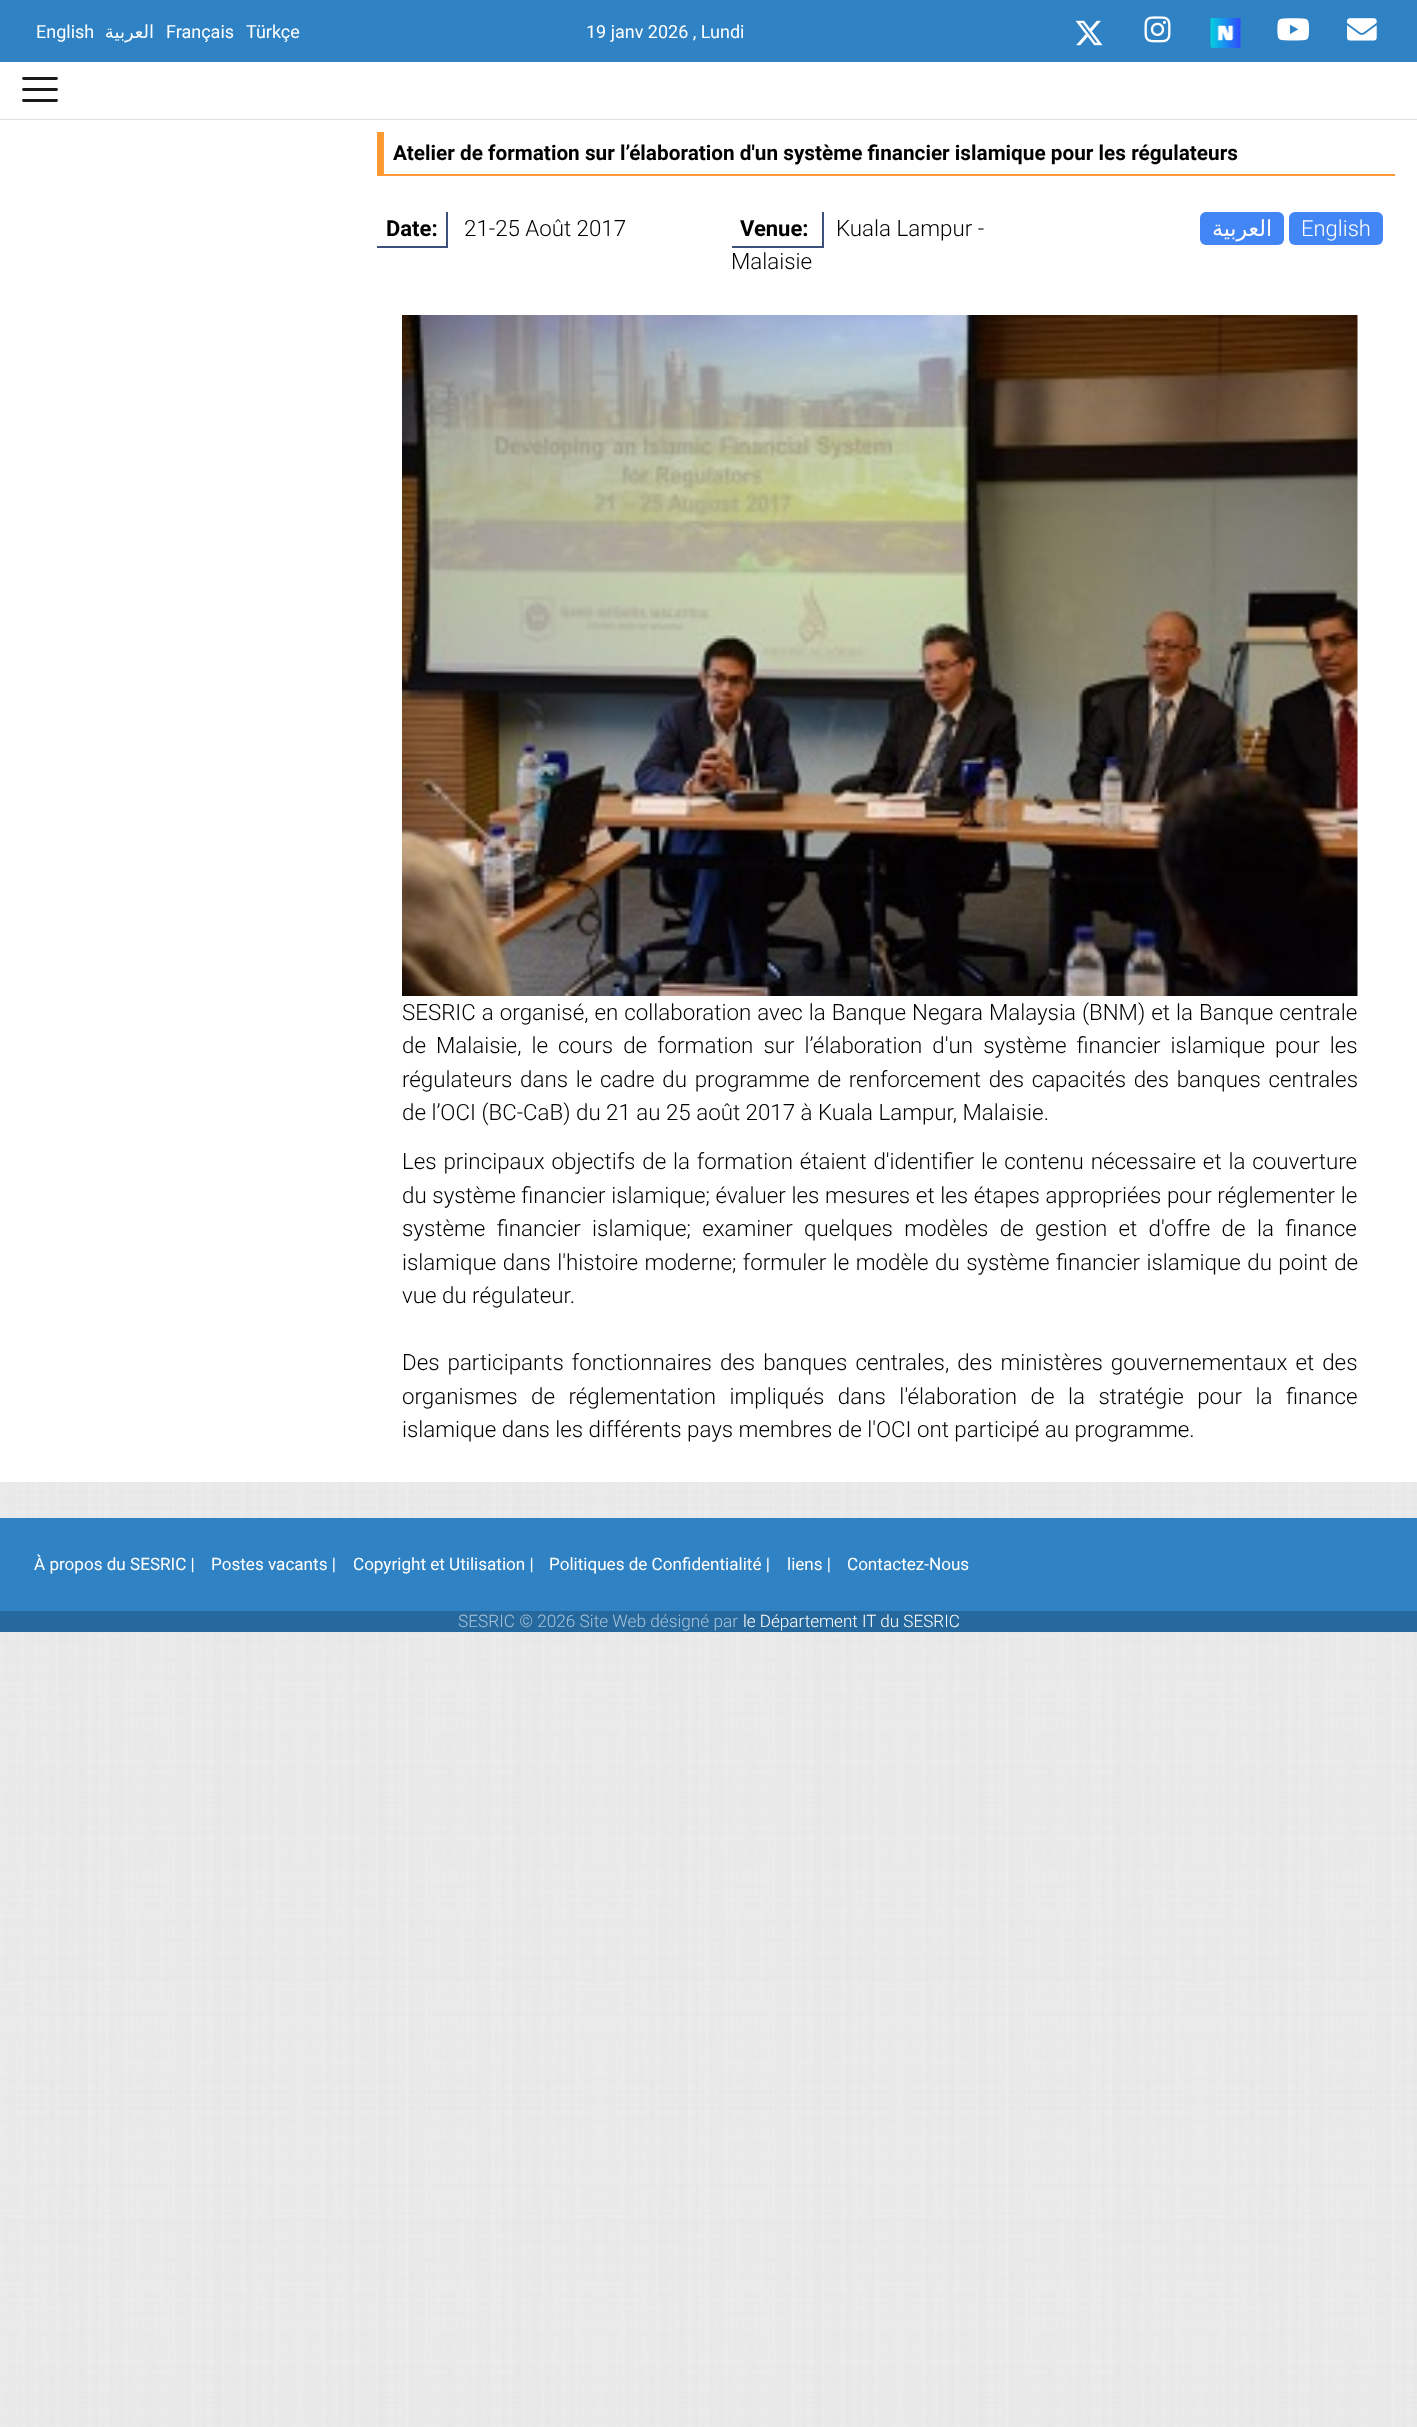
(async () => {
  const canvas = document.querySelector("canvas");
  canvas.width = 1417;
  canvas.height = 2427;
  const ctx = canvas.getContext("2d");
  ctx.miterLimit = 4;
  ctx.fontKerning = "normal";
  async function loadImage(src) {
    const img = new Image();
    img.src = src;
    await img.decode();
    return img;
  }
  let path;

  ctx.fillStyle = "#ffffff";
  ctx.fillRect(0, 0, 1417, 2427);
  ctx.drawImage(await loadImage("img/1.png"), 0, 1482, 1417, 945);
  ctx.fillStyle = "#dee2e6";
  ctx.fillRect(0, 119, 1417, 1);
  ctx.fillStyle = "#2f83c5";
  ctx.fillRect(0, 0, 1417, 62);
  ctx.drawImage(await loadImage("img/2.png"), 1075, 20, 28, 26);
  ctx.drawImage(await loadImage("img/3.png"), 1144, 16, 27, 27);
  ctx.drawImage(await loadImage("img/4.png"), 1210, 18, 31, 30);
  ctx.drawImage(await loadImage("img/5.png"), 1277, 18, 33, 23);
  ctx.drawImage(await loadImage("img/6.png"), 1347, 18, 30, 23);
  path = new Path2D("M23.5 78.5H56.5M23.5 89.5H56.5M23.5 100.5H56.5");
  ctx.strokeStyle = "#1a1a1a";
  ctx.lineWidth = 2.8;
  ctx.lineCap = "round";
  ctx.stroke(path);
  for (const [x, y, w, h, color] of [
    [377, 174, 1018, 2, "#ff9933"],
    [377, 132, 7, 44, "#ff9933"],
    [446, 212, 2, 36, "#3b517b"],
    [377, 246, 70, 2, "#3b517b"],
    [822, 212, 2, 36, "#3b517b"],
    [732, 246, 92, 2, "#3b517b"],
  ]) {
    ctx.fillStyle = color;
    ctx.fillRect(x, y, w, h);
  }
  ctx.fillStyle = "#4285f4";
  ctx.beginPath();
  ctx.roundRect(1200, 212, 84, 33, 6);
  ctx.fill();
  ctx.beginPath();
  ctx.roundRect(1289, 212, 94, 33, 6);
  ctx.fill();
  ctx.drawImage(await loadImage("img/7.png"), 402, 315, 956, 681);
  ctx.fillStyle = "#2f83c5";
  ctx.fillRect(0, 1518, 1417, 93);
  ctx.fillStyle = "#26699e";
  ctx.fillRect(0, 1611, 1417, 21);
  ctx.font = "18px Roboto";
  ctx.fillStyle = "#ffffff";
  ctx.fillText("English", 36, 38);
  ctx.direction = "rtl";
  ctx.font = "18px DejaVu Sans";
  ctx.fillText("العربية", 154, 38);
  ctx.direction = "ltr";
  ctx.font = "18px Roboto";
  for (const [text, x, y] of [
    ["Français", 166, 38],
    ["Türkçe", 246, 38],
    ["19 janv 2026 , Lundi", 586, 38],
  ]) {
    ctx.fillText(text, x, y);
  }
  ctx.font = "bold 20.75px Roboto";
  ctx.fillStyle = "#000000";
  ctx.fillText("Atelier de formation sur l’élaboration d'un système financier islamique pour les régulateurs", 393, 160);
  ctx.font = "bold 22px Roboto";
  ctx.fillText("Date:", 386, 236);
  ctx.font = "300 22.35px Roboto";
  ctx.fillText("21-25 Août 2017", 464, 236);
  ctx.font = "bold 22px Roboto";
  ctx.fillText("Venue:", 740, 236);
  ctx.font = "300 22.35px Roboto";
  ctx.fillText("Kuala Lampur -", 836, 236);
  ctx.fillText("Malaisie", 731, 269);
  ctx.direction = "rtl";
  ctx.font = "22px DejaVu Sans";
  ctx.fillStyle = "#ffffff";
  ctx.fillText("العربية", 1272, 236);
  ctx.direction = "ltr";
  ctx.font = "300 22px Roboto";
  ctx.fillText("English", 1301, 236);
  ctx.wordSpacing = "0.6px";
  ctx.font = "300 22.35px Roboto";
  ctx.fillStyle = "#000000";
  ctx.fillText("SESRIC a organisé, en collaboration avec la Banque Negara Malaysia (BNM) et la Banque centrale", 402, 1020);
  ctx.wordSpacing = "4.6px";
  ctx.fillText("de Malaisie, le cours de formation sur l’élaboration d'un système financier islamique pour les", 402, 1053);
  ctx.wordSpacing = "2.25px";
  ctx.fillText("régulateurs dans le cadre du programme de renforcement des capacités des banques centrales", 402, 1087);
  ctx.wordSpacing = "0px";
  ctx.fillText("de l’OCI (BC-CaB) du 21 au 25 août 2017 à Kuala Lampur, Malaisie.", 402, 1120);
  ctx.wordSpacing = "1.4px";
  ctx.fillText("Les principaux objectifs de la formation étaient d'identifier le contenu nécessaire et la couverture", 402, 1169);
  ctx.wordSpacing = "0.25px";
  ctx.fillText("du système financier islamique; évaluer les mesures et les étapes appropriées pour réglementer le", 402, 1203);
  ctx.wordSpacing = "5.9px";
  ctx.fillText("système financier islamique; examiner quelques modèles de gestion et d'offre de la finance", 402, 1236);
  ctx.wordSpacing = "1px";
  ctx.fillText("islamique dans l'histoire moderne; formuler le modèle du système financier islamique du point de", 402, 1270);
  ctx.wordSpacing = "0px";
  ctx.fillText("vue du régulateur.", 402, 1303);
  ctx.wordSpacing = "2.6px";
  ctx.fillText("Des participants fonctionnaires des banques centrales, des ministères gouvernementaux et des", 402, 1370);
  ctx.wordSpacing = "8.1px";
  ctx.fillText("organismes de réglementation impliqués dans l'élaboration de la stratégie pour la finance", 402, 1404);
  ctx.wordSpacing = "0px";
  ctx.fillText("islamique dans les différents pays membres de l'OCI ont participé au programme.", 402, 1437);
  ctx.font = "17.1px Roboto";
  ctx.fillStyle = "#ffffff";
  for (const [text, x, y] of [
    ["À propos du SESRIC |", 34, 1570],
    ["Postes vacants |", 211, 1570],
    ["Copyright et Utilisation |", 353, 1570],
    ["Politiques de Confidentialité |", 549, 1570],
    ["liens |", 787, 1570],
    ["Contactez-Nous", 847, 1570],
  ]) {
    ctx.fillText(text, x, y);
  }
  ctx.font = "300 17.25px Roboto";
  ctx.fillStyle = "#a8c3d8";
  ctx.fillText("SESRIC © 2026 Site Web désigné par", 458, 1627);
  ctx.font = "300 17.1px Roboto";
  ctx.fillStyle = "#ffffff";
  ctx.fillText("le Département IT du SESRIC", 743, 1627);
})();
